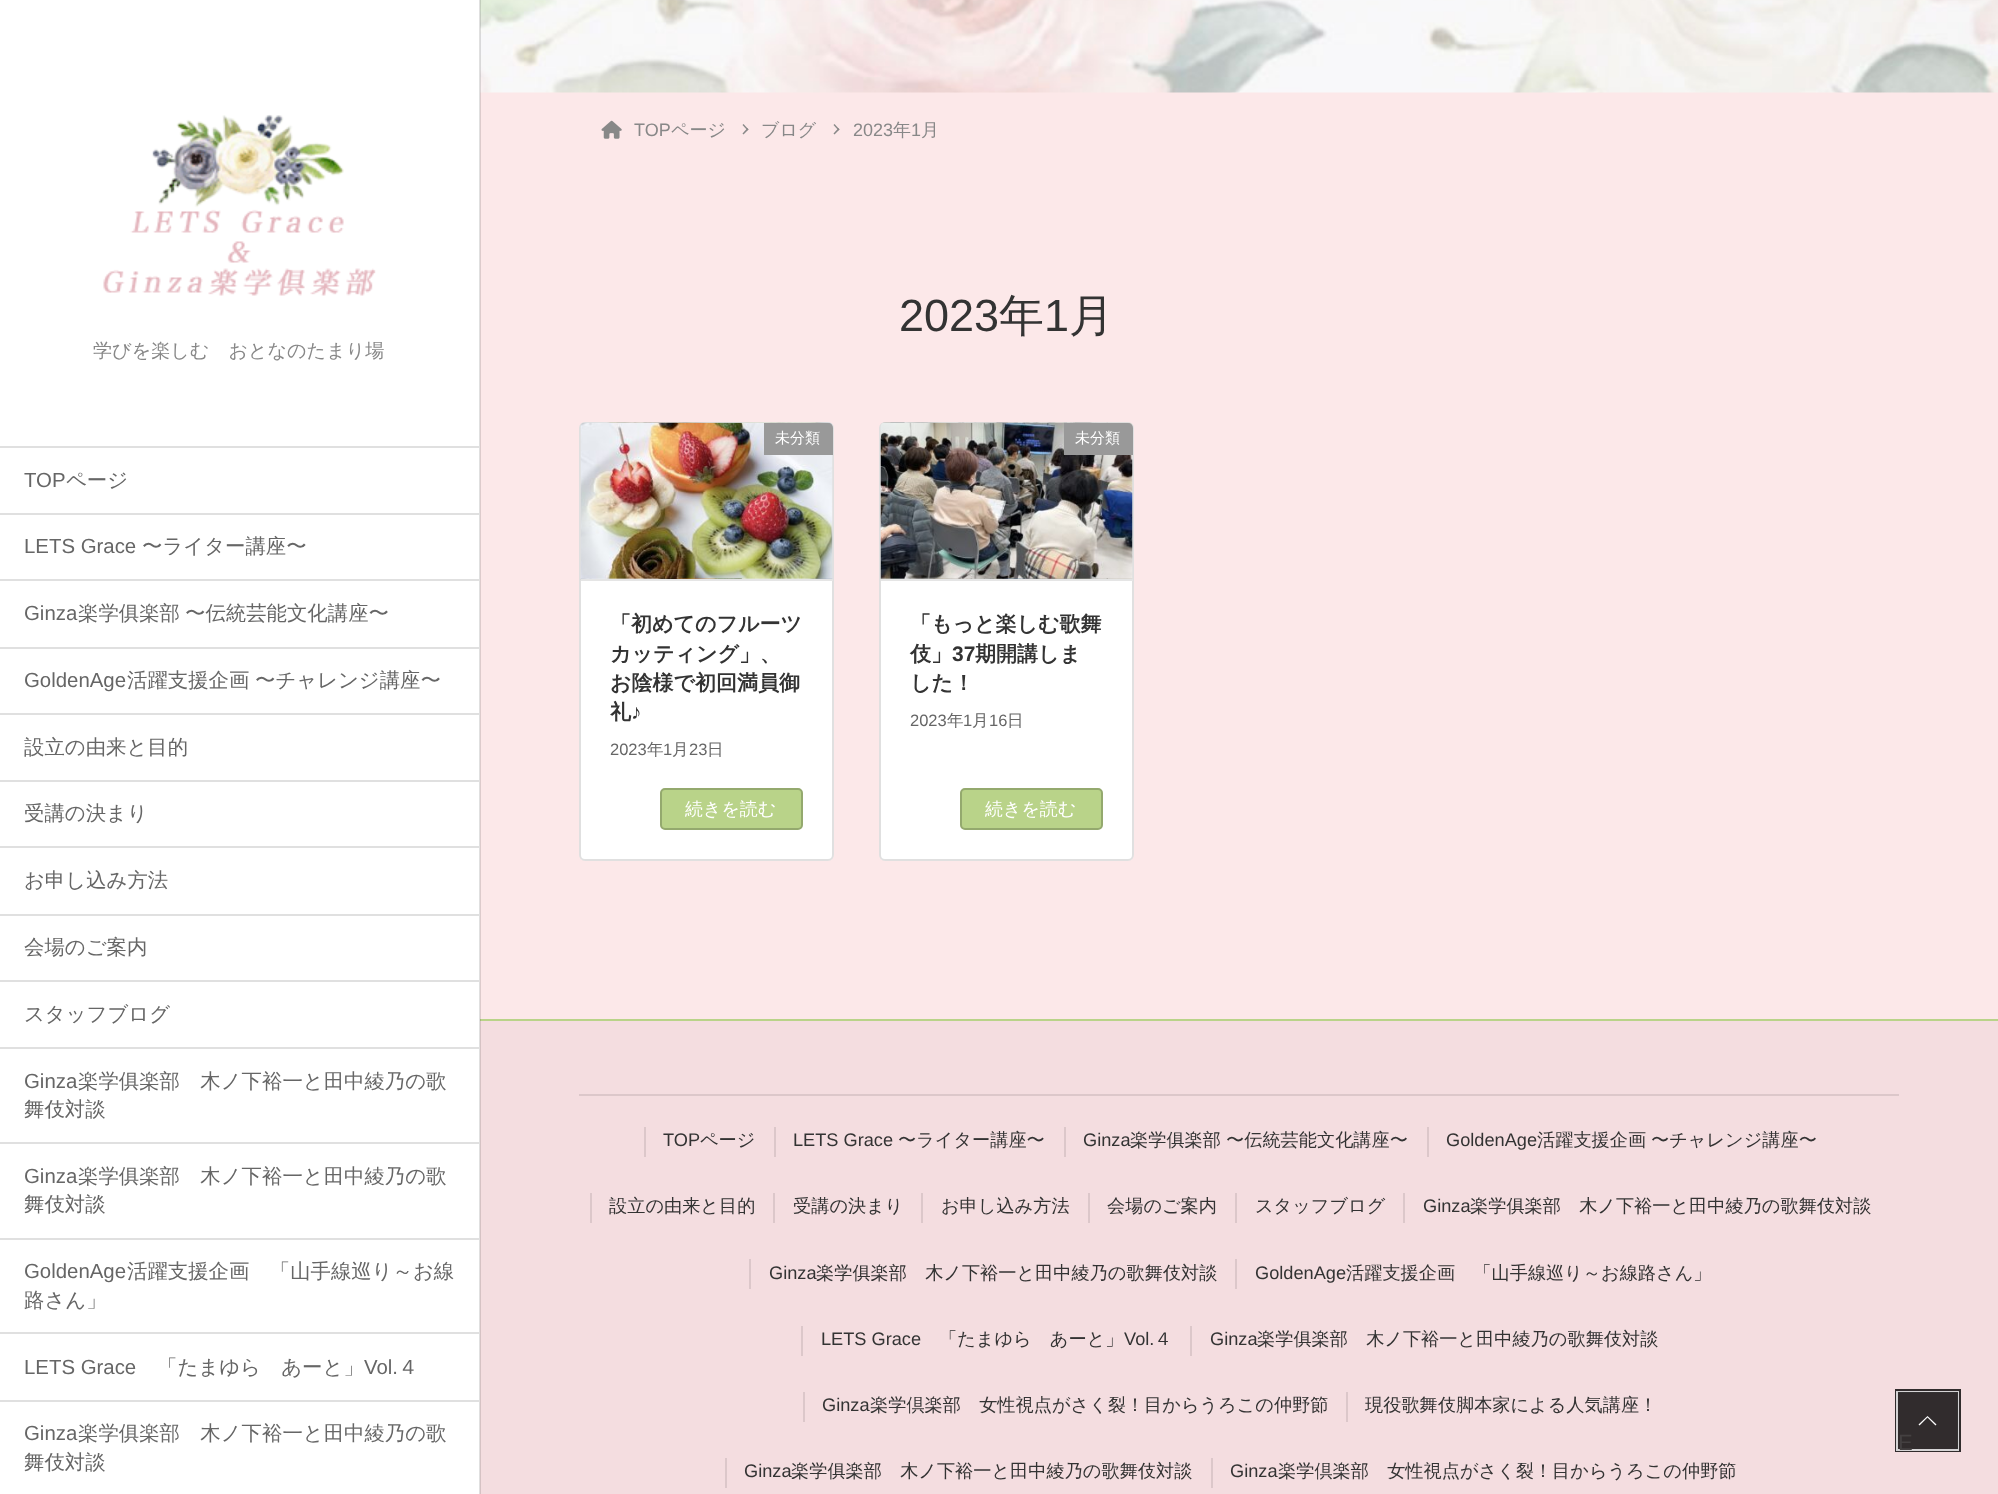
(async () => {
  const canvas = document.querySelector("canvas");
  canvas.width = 1998;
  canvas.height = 1494;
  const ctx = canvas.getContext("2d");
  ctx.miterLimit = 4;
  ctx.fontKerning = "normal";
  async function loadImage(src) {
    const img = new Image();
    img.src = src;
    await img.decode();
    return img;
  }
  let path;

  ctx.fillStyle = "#fce8e9";
  ctx.fillRect(0, 0, 1998, 1494);
  ctx.fillStyle = "#ffffff";
  ctx.fillRect(0, 0, 480, 1494);
  ctx.drawImage(await loadImage("img/2.png"), 480, 0, 1518, 93);
  for (const [x, y, w, h, color] of [
    [480, 1021, 1518, 473, "#f4dde0"],
    [480, 1019, 1518, 2, "#b9d389"],
    [479, 0, 2, 1494, "rgba(0, 0, 0, 0.12)"],
  ]) {
    ctx.fillStyle = color;
    ctx.fillRect(x, y, w, h);
  }
  ctx.drawImage(await loadImage("img/1.png"), 103, 114, 273, 182);
  for (const [x, y, w, h, color] of [
    [0, 446, 479, 2, "#e0e0e0"],
    [0, 513, 479, 2, "#e0e0e0"],
    [0, 579, 479, 2, "#e0e0e0"],
    [0, 647, 479, 2, "#e0e0e0"],
    [0, 713, 479, 2, "#e0e0e0"],
    [0, 780, 479, 2, "#e0e0e0"],
    [0, 846, 479, 2, "#e0e0e0"],
    [0, 914, 479, 2, "#e0e0e0"],
    [0, 980, 479, 2, "#e0e0e0"],
    [0, 1047, 479, 2, "#e0e0e0"],
    [0, 1142, 479, 2, "#e0e0e0"],
    [0, 1238, 479, 2, "#e0e0e0"],
    [0, 1332, 479, 2, "#e0e0e0"],
    [0, 1400, 479, 2, "#e0e0e0"],
  ]) {
    ctx.fillStyle = color;
    ctx.fillRect(x, y, w, h);
  }
  ctx.drawImage(await loadImage("img/3.png"), 601, 120, 21, 19);
  ctx.fillStyle = "#888888";
  path = new Path2D("M743.5 124L748.5 129.5L747.5 130.5L742.5 125Z");
  ctx.fill(path);
  path = new Path2D("M747.5 128L748.5 129.5L743.5 134.5L742.5 133.5Z");
  ctx.fill(path);
  path = new Path2D("M834.5 124L839.5 129.5L838.5 130.5L833.5 125Z");
  ctx.fill(path);
  path = new Path2D("M838.5 128L839.5 129.5L834.5 134.5L833.5 133.5Z");
  ctx.fill(path);
  ctx.fillStyle = "#ffffff";
  ctx.beginPath();
  ctx.roundRect(579, 422, 255, 439, 6);
  ctx.fill();
  ctx.beginPath();
  ctx.roundRect(580, 423, 253, 437, 5);
  ctx.strokeStyle = "rgba(0, 0, 0, 0.12)";
  ctx.lineWidth = 2;
  ctx.stroke();
  ctx.drawImage(await loadImage("img/4.png"), 580, 422, 253, 158);
  ctx.fillStyle = "#e5e5e5";
  ctx.fillRect(581, 579, 252, 2);
  ctx.fillStyle = "#999999";
  ctx.beginPath();
  ctx.roundRect(764, 423, 69, 32, [0, 5, 0, 0]);
  ctx.fill();
  ctx.fillStyle = "#b9d389";
  ctx.beginPath();
  ctx.roundRect(661, 789, 141, 40, 4);
  ctx.fill();
  ctx.strokeStyle = "#94a96e";
  ctx.stroke();
  ctx.fillStyle = "#ffffff";
  ctx.beginPath();
  ctx.roundRect(879, 422, 255, 439, 6);
  ctx.fill();
  ctx.beginPath();
  ctx.roundRect(880, 423, 253, 437, 5);
  ctx.strokeStyle = "rgba(0, 0, 0, 0.12)";
  ctx.stroke();
  ctx.drawImage(await loadImage("img/5.png"), 880, 422, 253, 158);
  ctx.fillStyle = "#e5e5e5";
  ctx.fillRect(881, 579, 252, 2);
  ctx.fillStyle = "#999999";
  ctx.beginPath();
  ctx.roundRect(1064, 423, 69, 32, [0, 5, 0, 0]);
  ctx.fill();
  ctx.fillStyle = "#b9d389";
  ctx.beginPath();
  ctx.roundRect(961, 789, 141, 40, 4);
  ctx.fill();
  ctx.strokeStyle = "#94a96e";
  ctx.stroke();
  for (const [x, y, w, h, color] of [
    [579, 1094, 1320, 2, "#dcc7ca"],
    [644, 1127, 2, 30, "#dcc7ca"],
    [774, 1127, 2, 30, "#dcc7ca"],
    [1064, 1127, 2, 30, "#dcc7ca"],
    [1427, 1127, 2, 30, "#dcc7ca"],
    [590, 1193, 2, 30, "#dcc7ca"],
    [773, 1193, 2, 30, "#dcc7ca"],
    [921, 1193, 2, 30, "#dcc7ca"],
    [1088, 1193, 2, 30, "#dcc7ca"],
    [1235, 1193, 2, 30, "#dcc7ca"],
    [1403, 1193, 2, 30, "#dcc7ca"],
    [749, 1259, 2, 30, "#dcc7ca"],
    [1235, 1259, 2, 30, "#dcc7ca"],
    [801, 1326, 2, 30, "#dcc7ca"],
    [1190, 1326, 2, 30, "#dcc7ca"],
    [803, 1392, 2, 30, "#dcc7ca"],
    [1346, 1392, 2, 30, "#dcc7ca"],
    [725, 1458, 2, 30, "#dcc7ca"],
    [1211, 1458, 2, 30, "#dcc7ca"],
  ]) {
    ctx.fillStyle = color;
    ctx.fillRect(x, y, w, h);
  }
  ctx.strokeStyle = "#312c2d";
  ctx.lineWidth = 3;
  ctx.strokeRect(1896.5, 1390.5, 63, 60);
  ctx.strokeStyle = "rgba(255, 255, 255, 0.8)";
  ctx.lineWidth = 2;
  ctx.strokeRect(1897, 1392, 61, 58);
  ctx.fillStyle = "rgba(0, 0, 0, 0.8)";
  ctx.fillRect(1898, 1392, 60, 57);
  ctx.fillStyle = "#ffffff";
  path = new Path2D("M1936.5 1424.5L1935.5 1425.5L1927.5 1417.5L1919.5 1425.5L1918.5 1424.5L1927.5 1416Z");
  ctx.fill(path);
  ctx.font = "500 19.1px WenQuanYi Zen Hei";
  ctx.fillStyle = "#888888";
  ctx.fillText("学びを楽しむ　おとなのたまり場", 93, 357);
  ctx.font = "20.4px Liberation Sans";
  ctx.fillStyle = "#666666";
  ctx.fillText("TOP", 24, 487);
  ctx.font = "500 20.4px WenQuanYi Zen Hei";
  ctx.fillText("ページ", 66, 487);
  ctx.font = "20.4px Liberation Sans";
  ctx.fillText("LETS Grace", 24, 553);
  ctx.font = "500 20.4px WenQuanYi Zen Hei";
  ctx.fillText("〜ライター講座〜", 142, 553);
  ctx.font = "20.4px Liberation Sans";
  ctx.fillText("Ginza", 24, 620);
  ctx.font = "500 20.4px WenQuanYi Zen Hei";
  ctx.fillText("楽学俱楽部", 78, 620);
  ctx.fillText("〜伝統芸能文化講座〜", 185, 620);
  ctx.font = "20.4px Liberation Sans";
  ctx.fillText("GoldenAge", 24, 687);
  ctx.font = "500 20.4px WenQuanYi Zen Hei";
  for (const [text, x, y] of [
    ["活躍支援企画", 127, 687],
    ["〜チャレンジ講座〜", 255, 687],
    ["設立の由来と目的", 24, 754],
    ["受講の決まり", 24, 820],
    ["お申し込み方法", 24, 887],
    ["会場のご案内", 24, 954],
    ["スタッフブログ", 24, 1021],
  ]) {
    ctx.fillText(text, x, y);
  }
  ctx.font = "20.4px Liberation Sans";
  ctx.fillText("Ginza", 24, 1088);
  ctx.font = "500 20.4px WenQuanYi Zen Hei";
  ctx.fillText("楽学俱楽部　木ノ下裕一と田中綾乃の歌", 78, 1088);
  ctx.fillText("舞伎対談", 24, 1116);
  ctx.font = "20.4px Liberation Sans";
  ctx.fillText("Ginza", 24, 1183);
  ctx.font = "500 20.4px WenQuanYi Zen Hei";
  ctx.fillText("楽学俱楽部　木ノ下裕一と田中綾乃の歌", 78, 1183);
  ctx.fillText("舞伎対談", 24, 1211);
  ctx.font = "20.4px Liberation Sans";
  ctx.fillText("GoldenAge", 24, 1278);
  ctx.font = "500 20.4px WenQuanYi Zen Hei";
  ctx.fillText("活躍支援企画　「山手線巡り～お線", 127, 1278);
  ctx.fillText("路さん」", 24, 1307);
  ctx.font = "20.4px Liberation Sans";
  ctx.fillText("LETS Grace", 24, 1374);
  ctx.font = "500 20.4px WenQuanYi Zen Hei";
  ctx.fillText("「たまゆら　あーと」", 157, 1374);
  ctx.font = "20.4px Liberation Sans";
  ctx.fillText("Vol.", 364, 1374);
  ctx.font = "500 20.4px WenQuanYi Zen Hei";
  ctx.fillText("４", 398, 1374);
  ctx.font = "20.4px Liberation Sans";
  ctx.fillText("Ginza", 24, 1440);
  ctx.font = "500 20.4px WenQuanYi Zen Hei";
  ctx.fillText("楽学俱楽部　木ノ下裕一と田中綾乃の歌", 78, 1440);
  ctx.fillText("舞伎対談", 24, 1469);
  ctx.font = "18px Liberation Sans";
  ctx.fillStyle = "#888888";
  ctx.fillText("TOP", 634, 136);
  ctx.font = "500 18px WenQuanYi Zen Hei";
  ctx.fillText("ページ", 671, 136);
  ctx.fillText("ブログ", 761, 136);
  ctx.font = "18px Liberation Sans";
  ctx.fillText("2023", 853, 136);
  ctx.font = "500 18px WenQuanYi Zen Hei";
  ctx.fillText("年", 893, 136);
  ctx.font = "18px Liberation Sans";
  ctx.fillText("1", 911, 136);
  ctx.font = "500 18px WenQuanYi Zen Hei";
  ctx.fillText("月", 921, 136);
  ctx.font = "45px Liberation Sans";
  ctx.fillStyle = "#333333";
  ctx.fillText("2023", 899, 331);
  ctx.font = "500 45px WenQuanYi Zen Hei";
  ctx.fillText("年", 999, 331);
  ctx.font = "45px Liberation Sans";
  ctx.fillText("1", 1044, 331);
  ctx.font = "500 45px WenQuanYi Zen Hei";
  ctx.fillText("月", 1069, 331);
  ctx.font = "500 15px WenQuanYi Zen Hei";
  ctx.fillStyle = "#ffffff";
  ctx.fillText("未分類", 775, 443);
  ctx.font = "bold 21px WenQuanYi Zen Hei";
  ctx.fillStyle = "#333333";
  for (const [text, x, y] of [
    ["「初めてのフルーツ", 610, 631],
    ["カッティング」、", 610, 661],
    ["お陰様で初回満員御", 610, 690],
    ["礼", 610, 719],
  ]) {
    ctx.fillText(text, x, y);
  }
  ctx.font = "bold 21px Liberation Sans";
  ctx.fillText("♪", 631, 719);
  ctx.font = "16.5px Liberation Sans";
  ctx.fillStyle = "#666666";
  ctx.fillText("2023", 610, 755);
  ctx.font = "500 16.5px WenQuanYi Zen Hei";
  ctx.fillText("年", 647, 755);
  ctx.font = "16.5px Liberation Sans";
  ctx.fillText("1", 663, 755);
  ctx.font = "500 16.5px WenQuanYi Zen Hei";
  ctx.fillText("月", 672, 755);
  ctx.font = "16.5px Liberation Sans";
  ctx.fillText("23", 689, 755);
  ctx.font = "500 16.5px WenQuanYi Zen Hei";
  ctx.fillText("日", 707, 755);
  ctx.font = "500 18px WenQuanYi Zen Hei";
  ctx.fillStyle = "#ffffff";
  ctx.fillText("続きを読む", 685, 815);
  ctx.font = "500 15px WenQuanYi Zen Hei";
  ctx.fillText("未分類", 1075, 443);
  ctx.font = "bold 21px WenQuanYi Zen Hei";
  ctx.fillStyle = "#333333";
  ctx.fillText("「もっと楽しむ歌舞", 910, 631);
  ctx.fillText("伎」", 910, 661);
  ctx.font = "bold 21px Liberation Sans";
  ctx.fillText("37", 952, 661);
  ctx.font = "bold 21px WenQuanYi Zen Hei";
  ctx.fillText("期開講しま", 975, 661);
  ctx.fillText("した！", 910, 690);
  ctx.font = "16.5px Liberation Sans";
  ctx.fillStyle = "#666666";
  ctx.fillText("2023", 910, 726);
  ctx.font = "500 16.5px WenQuanYi Zen Hei";
  ctx.fillText("年", 947, 726);
  ctx.font = "16.5px Liberation Sans";
  ctx.fillText("1", 963, 726);
  ctx.font = "500 16.5px WenQuanYi Zen Hei";
  ctx.fillText("月", 972, 726);
  ctx.font = "16.5px Liberation Sans";
  ctx.fillText("16", 989, 726);
  ctx.font = "500 16.5px WenQuanYi Zen Hei";
  ctx.fillText("日", 1007, 726);
  ctx.font = "500 18px WenQuanYi Zen Hei";
  ctx.fillStyle = "#ffffff";
  ctx.fillText("続きを読む", 985, 815);
  ctx.font = "18.2px Liberation Sans";
  ctx.fillStyle = "#333333";
  ctx.fillText("TOP", 663, 1146);
  ctx.font = "500 18.2px WenQuanYi Zen Hei";
  ctx.fillText("ページ", 700, 1146);
  ctx.font = "18.2px Liberation Sans";
  ctx.fillText("LETS Grace", 793, 1146);
  ctx.font = "500 18.2px WenQuanYi Zen Hei";
  ctx.fillText("〜ライター講座〜", 898, 1146);
  ctx.font = "18.2px Liberation Sans";
  ctx.fillText("Ginza", 1083, 1146);
  ctx.font = "500 18.2px WenQuanYi Zen Hei";
  ctx.fillText("楽学俱楽部", 1130, 1146);
  ctx.fillText("〜伝統芸能文化講座〜", 1226, 1146);
  ctx.font = "18.2px Liberation Sans";
  ctx.fillText("GoldenAge", 1446, 1146);
  ctx.font = "500 18.2px WenQuanYi Zen Hei";
  for (const [text, x, y] of [
    ["活躍支援企画", 1537, 1146],
    ["〜チャレンジ講座〜", 1651, 1146],
    ["設立の由来と目的", 609, 1212],
    ["受講の決まり", 793, 1212],
    ["お申し込み方法", 941, 1212],
    ["会場のご案内", 1107, 1212],
    ["スタッフブログ", 1255, 1212],
  ]) {
    ctx.fillText(text, x, y);
  }
  ctx.font = "18.2px Liberation Sans";
  ctx.fillText("Ginza", 1423, 1212);
  ctx.font = "500 18.2px WenQuanYi Zen Hei";
  ctx.fillText("楽学俱楽部　木ノ下裕一と田中綾乃の歌舞伎対談", 1470, 1212);
  ctx.font = "18.2px Liberation Sans";
  ctx.fillText("Ginza", 769, 1279);
  ctx.font = "500 18.2px WenQuanYi Zen Hei";
  ctx.fillText("楽学俱楽部　木ノ下裕一と田中綾乃の歌舞伎対談", 816, 1279);
  ctx.font = "18.2px Liberation Sans";
  ctx.fillText("GoldenAge", 1255, 1279);
  ctx.font = "500 18.2px WenQuanYi Zen Hei";
  ctx.fillText("活躍支援企画　「山手線巡り～お線路さん」", 1346, 1279);
  ctx.font = "18.2px Liberation Sans";
  ctx.fillText("LETS Grace", 821, 1345);
  ctx.font = "500 18.2px WenQuanYi Zen Hei";
  ctx.fillText("「たまゆら　あーと」", 939, 1345);
  ctx.font = "18.2px Liberation Sans";
  ctx.fillText("Vol.", 1124, 1345);
  ctx.font = "500 18.2px WenQuanYi Zen Hei";
  ctx.fillText("４", 1154, 1345);
  ctx.font = "18.2px Liberation Sans";
  ctx.fillText("Ginza", 1210, 1345);
  ctx.font = "500 18.2px WenQuanYi Zen Hei";
  ctx.fillText("楽学俱楽部　木ノ下裕一と田中綾乃の歌舞伎対談", 1257, 1345);
  ctx.font = "18.2px Liberation Sans";
  ctx.fillText("Ginza", 822, 1411);
  ctx.font = "500 18.2px WenQuanYi Zen Hei";
  ctx.fillText("楽学倶楽部　女性視点がさく裂！目からうろこの仲野節", 870, 1411);
  ctx.fillText("現役歌舞伎脚本家による人気講座！", 1365, 1411);
  ctx.font = "18.2px Liberation Sans";
  ctx.fillText("Ginza", 744, 1477);
  ctx.font = "500 18.2px WenQuanYi Zen Hei";
  ctx.fillText("楽学俱楽部　木ノ下裕一と田中綾乃の歌舞伎対談", 791, 1477);
  ctx.font = "18.2px Liberation Sans";
  ctx.fillText("Ginza", 1230, 1477);
  ctx.font = "500 18.2px WenQuanYi Zen Hei";
  ctx.fillText("楽学倶楽部　女性視点がさく裂！目からうろこの仲野節", 1278, 1477);
  ctx.font = "22px Liberation Sans";
  ctx.fillStyle = "#444041";
  ctx.fillText("E", 1898, 1450);
})();
